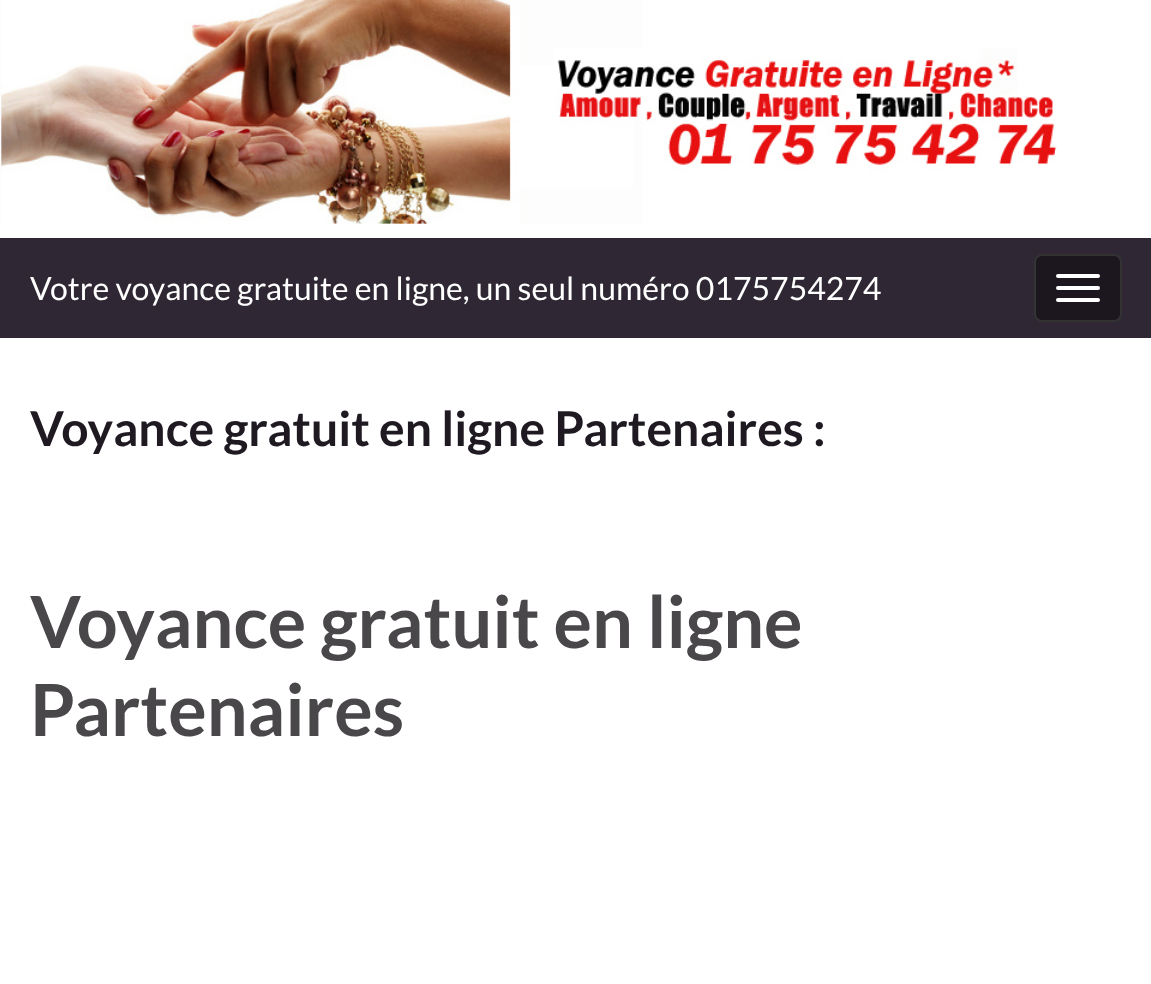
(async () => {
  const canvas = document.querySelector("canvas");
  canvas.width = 1151;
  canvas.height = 984;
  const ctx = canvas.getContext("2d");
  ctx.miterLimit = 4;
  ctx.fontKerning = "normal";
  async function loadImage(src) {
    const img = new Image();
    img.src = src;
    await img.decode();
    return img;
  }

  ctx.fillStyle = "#ffffff";
  ctx.fillRect(0, 0, 1151, 984);
  ctx.drawImage(await loadImage("img/1.png"), 0, 0, 1057, 224);
  ctx.fillStyle = "#2f2733";
  ctx.fillRect(0, 238, 1151, 100);
  ctx.fillStyle = "#1c171f";
  ctx.beginPath();
  ctx.roundRect(1035, 255, 86, 66, 7);
  ctx.fill();
  ctx.strokeStyle = "#333333";
  ctx.lineWidth = 2;
  ctx.stroke();
  ctx.fillStyle = "#ffffff";
  ctx.beginPath();
  ctx.roundRect(1056, 274, 44, 4, 2);
  ctx.fill();
  ctx.beginPath();
  ctx.roundRect(1056, 286, 44, 4, 2);
  ctx.fill();
  ctx.beginPath();
  ctx.roundRect(1056, 298, 44, 4, 2);
  ctx.fill();
  ctx.font = "32px Lato";
  ctx.fillText("Votre voyance gratuite en ligne, un seul numéro 0175754274", 30, 300);
  ctx.font = "bold 48px Lato";
  ctx.fillStyle = "#1f1a22";
  ctx.fillText("Voyance gratuit en ligne Partenaires :", 30, 446);
  ctx.font = "bold 72px Lato";
  ctx.fillStyle = "#4a474b";
  ctx.fillText("Voyance gratuit en ligne", 30, 648);
  ctx.fillText("Partenaires", 30, 736);
})();
